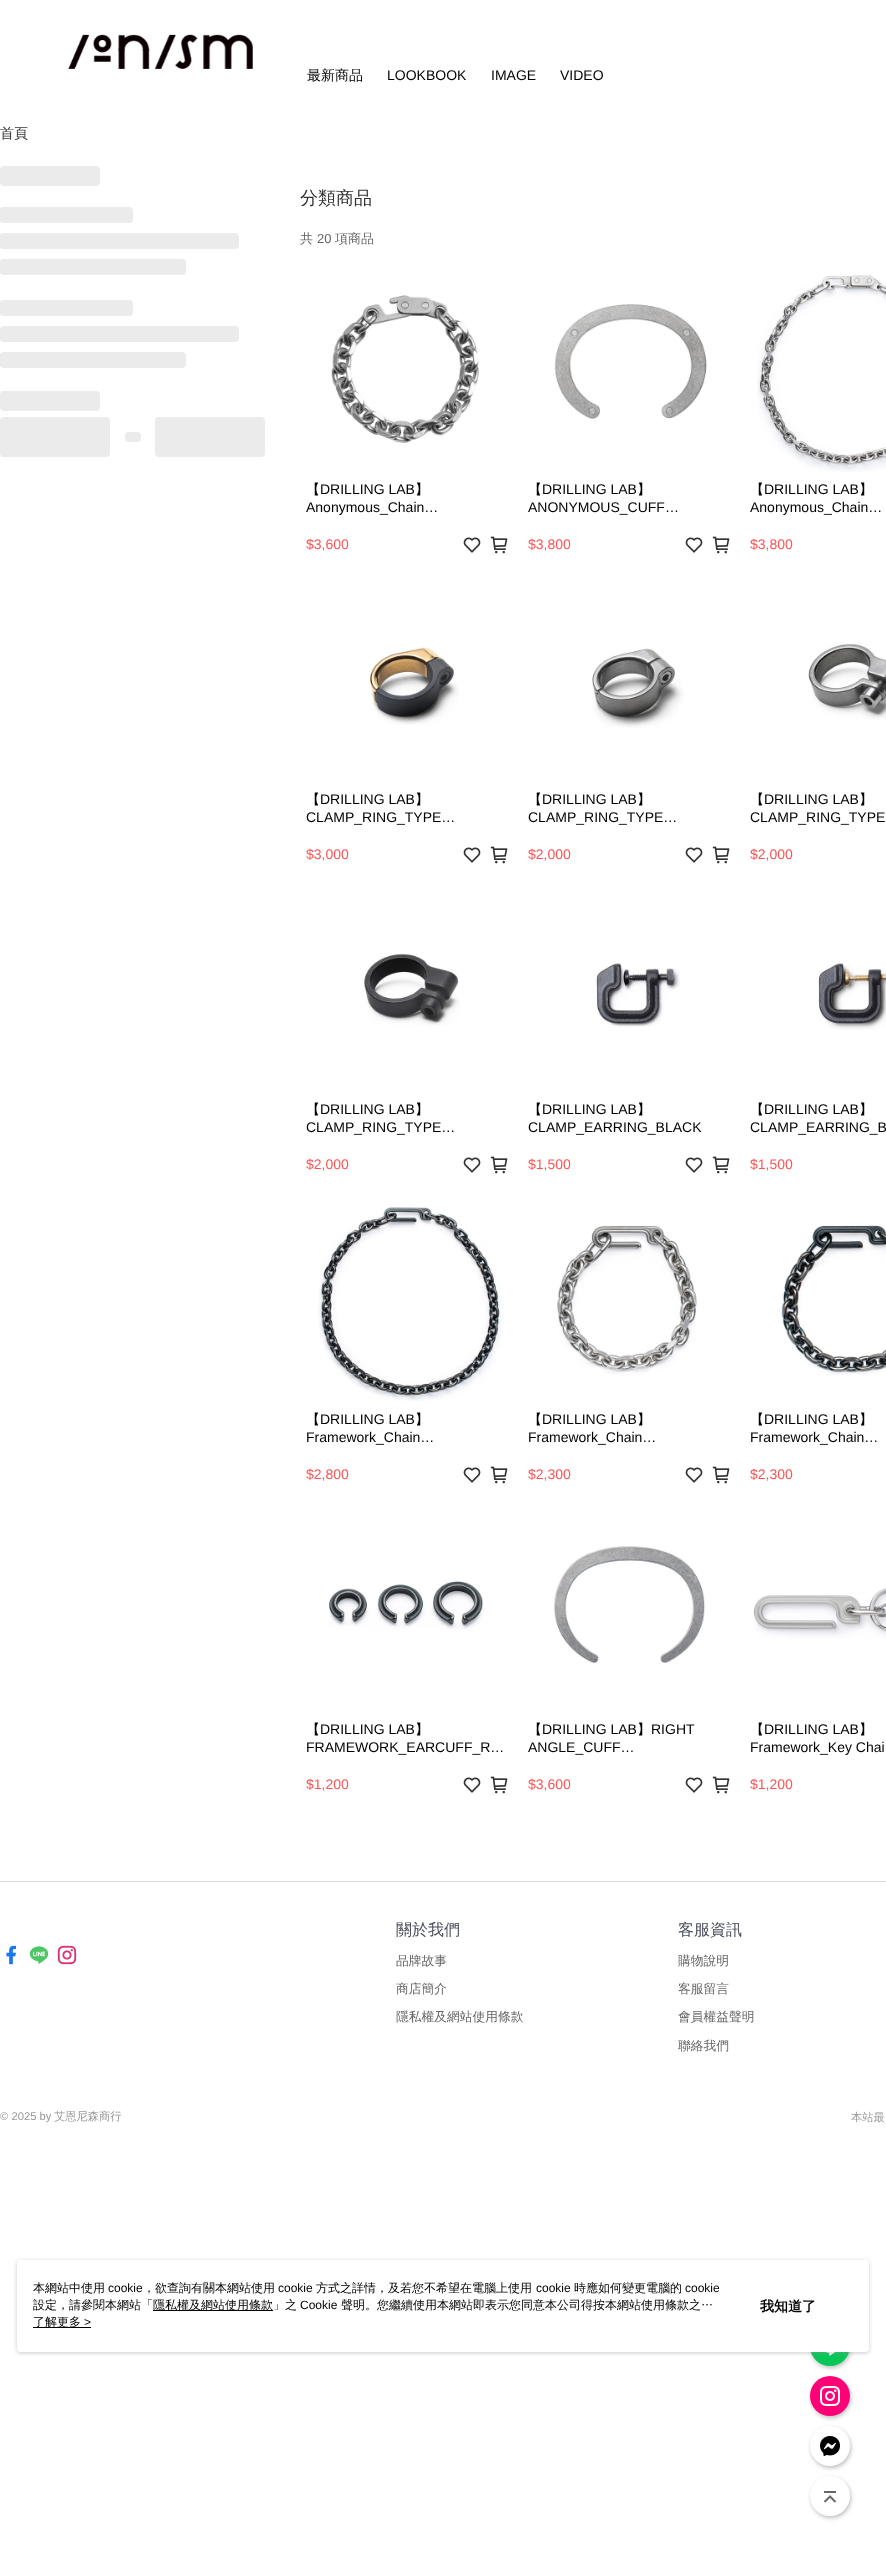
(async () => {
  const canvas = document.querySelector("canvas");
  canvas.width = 886;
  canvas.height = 2562;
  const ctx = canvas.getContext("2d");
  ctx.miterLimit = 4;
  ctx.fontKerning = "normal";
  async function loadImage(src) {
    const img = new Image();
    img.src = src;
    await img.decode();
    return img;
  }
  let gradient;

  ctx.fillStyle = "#ffffff";
  ctx.fillRect(0, 0, 886, 2562);
  ctx.drawImage(await loadImage("img/1.png"), 68, 34, 185, 35);
  ctx.fillStyle = "rgba(0, 0, 0, 0.25)";
  ctx.filter = "blur(2px)";
  ctx.beginPath();
  ctx.roundRect(811, 2328, 40, 40, 20);
  ctx.fill();
  ctx.filter = "none";
  ctx.fillStyle = "#06c755";
  ctx.beginPath();
  ctx.arc(830, 2346, 20, 0, Math.PI * 2);
  ctx.fill();
  ctx.drawImage(await loadImage("img/2.png"), 826, 2352, 10, 4);
  ctx.fillStyle = "rgba(0, 0, 0, 0.25)";
  ctx.filter = "blur(2px)";
  ctx.beginPath();
  ctx.roundRect(811, 2378, 40, 40, 20);
  ctx.fill();
  ctx.filter = "none";
  ctx.fillStyle = "#ff0076";
  ctx.beginPath();
  ctx.arc(830, 2396, 20, 0, Math.PI * 2);
  ctx.fill();
  ctx.drawImage(await loadImage("img/3.png"), 820, 2386, 20, 20);
  ctx.fillStyle = "rgba(0, 0, 0, 0.25)";
  ctx.filter = "blur(2px)";
  ctx.beginPath();
  ctx.roundRect(811, 2428, 40, 40, 20);
  ctx.fill();
  ctx.filter = "none";
  ctx.fillStyle = "#ffffff";
  ctx.beginPath();
  ctx.arc(830, 2446, 20, 0, Math.PI * 2);
  ctx.fill();
  ctx.drawImage(await loadImage("img/4.png"), 820, 2436, 20, 20);
  ctx.fillStyle = "rgba(0, 0, 0, 0.25)";
  ctx.filter = "blur(2px)";
  ctx.beginPath();
  ctx.roundRect(811, 2478, 40, 40, 20);
  ctx.fill();
  ctx.filter = "none";
  ctx.fillStyle = "#ffffff";
  ctx.beginPath();
  ctx.arc(830, 2496, 20, 0, Math.PI * 2);
  ctx.fill();
  ctx.drawImage(await loadImage("img/5.png"), 823, 2491, 14, 12);
  ctx.fillStyle = "#ebebeb";
  ctx.beginPath();
  ctx.roundRect(0, 166, 100, 20, 4);
  ctx.fill();
  ctx.beginPath();
  ctx.roundRect(0, 207, 133, 16, 4);
  ctx.fill();
  ctx.save();
  ctx.beginPath();
  ctx.roundRect(0, 207, 133, 16, 4);
  ctx.clip();
  gradient = ctx.createLinearGradient(-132, 215, 0.5, 215);
  gradient.addColorStop(0, "#ebebeb");
  gradient.addColorStop(0.5, "#f5f5f5");
  gradient.addColorStop(1, "#ebebeb");
  ctx.fillStyle = gradient;
  ctx.fillRect(0, 207, 1, 16);
  ctx.restore();
  ctx.beginPath();
  ctx.roundRect(0, 233, 239, 16, 4);
  ctx.fill();
  ctx.save();
  ctx.beginPath();
  ctx.roundRect(0, 233, 239, 16, 4);
  ctx.clip();
  gradient = ctx.createLinearGradient(-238, 241, 0.5, 241);
  gradient.addColorStop(0, "#ebebeb");
  gradient.addColorStop(0.5, "#f5f5f5");
  gradient.addColorStop(1, "#ebebeb");
  ctx.fillStyle = gradient;
  ctx.fillRect(0, 233, 1, 16);
  ctx.restore();
  ctx.beginPath();
  ctx.roundRect(0, 259, 186, 16, 4);
  ctx.fill();
  ctx.save();
  ctx.beginPath();
  ctx.roundRect(0, 259, 186, 16, 4);
  ctx.clip();
  gradient = ctx.createLinearGradient(-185, 267, 0.5, 267);
  gradient.addColorStop(0, "#ebebeb");
  gradient.addColorStop(0.5, "#f5f5f5");
  gradient.addColorStop(1, "#ebebeb");
  ctx.fillStyle = gradient;
  ctx.fillRect(0, 259, 1, 16);
  ctx.restore();
  ctx.beginPath();
  ctx.roundRect(0, 300, 133, 16, 4);
  ctx.fill();
  ctx.save();
  ctx.beginPath();
  ctx.roundRect(0, 300, 133, 16, 4);
  ctx.clip();
  gradient = ctx.createLinearGradient(-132, 308, 0.5, 308);
  gradient.addColorStop(0, "#ebebeb");
  gradient.addColorStop(0.5, "#f5f5f5");
  gradient.addColorStop(1, "#ebebeb");
  ctx.fillStyle = gradient;
  ctx.fillRect(0, 300, 1, 16);
  ctx.restore();
  ctx.beginPath();
  ctx.roundRect(0, 326, 239, 16, 4);
  ctx.fill();
  ctx.save();
  ctx.beginPath();
  ctx.roundRect(0, 326, 239, 16, 4);
  ctx.clip();
  gradient = ctx.createLinearGradient(-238, 334, 0.5, 334);
  gradient.addColorStop(0, "#ebebeb");
  gradient.addColorStop(0.5, "#f5f5f5");
  gradient.addColorStop(1, "#ebebeb");
  ctx.fillStyle = gradient;
  ctx.fillRect(0, 326, 1, 16);
  ctx.restore();
  ctx.beginPath();
  ctx.roundRect(0, 352, 186, 16, 4);
  ctx.fill();
  ctx.save();
  ctx.beginPath();
  ctx.roundRect(0, 352, 186, 16, 4);
  ctx.clip();
  gradient = ctx.createLinearGradient(-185, 360, 0.5, 360);
  gradient.addColorStop(0, "#ebebeb");
  gradient.addColorStop(0.5, "#f5f5f5");
  gradient.addColorStop(1, "#ebebeb");
  ctx.fillStyle = gradient;
  ctx.fillRect(0, 352, 1, 16);
  ctx.restore();
  ctx.beginPath();
  ctx.roundRect(0, 391, 100, 20, 4);
  ctx.fill();
  ctx.beginPath();
  ctx.roundRect(0, 417, 110, 40, 4);
  ctx.fill();
  ctx.beginPath();
  ctx.roundRect(125, 432, 16, 10, 4);
  ctx.fill();
  ctx.beginPath();
  ctx.roundRect(155, 417, 110, 40, 4);
  ctx.fill();
  ctx.drawImage(await loadImage("img/6.png"), 331, 295, 148, 148);
  ctx.drawImage(await loadImage("img/7.png"), 463, 537, 18, 16);
  ctx.drawImage(await loadImage("img/8.png"), 490, 536, 18, 18);
  ctx.drawImage(await loadImage("img/9.png"), 554, 304, 153, 115);
  ctx.drawImage(await loadImage("img/7.png"), 685, 537, 18, 16);
  ctx.drawImage(await loadImage("img/8.png"), 712, 536, 18, 18);
  ctx.drawImage(await loadImage("img/10.png"), 757, 275, 129, 197);
  ctx.drawImage(await loadImage("img/11.png"), 369, 647, 90, 78);
  ctx.drawImage(await loadImage("img/7.png"), 463, 847, 18, 16);
  ctx.drawImage(await loadImage("img/8.png"), 490, 846, 18, 18);
  ctx.drawImage(await loadImage("img/12.png"), 592, 648, 92, 80);
  ctx.drawImage(await loadImage("img/7.png"), 685, 847, 18, 16);
  ctx.drawImage(await loadImage("img/8.png"), 712, 846, 18, 18);
  ctx.drawImage(await loadImage("img/13.png"), 808, 643, 78, 77);
  ctx.drawImage(await loadImage("img/14.png"), 364, 953, 96, 73);
  ctx.drawImage(await loadImage("img/7.png"), 463, 1157, 18, 16);
  ctx.drawImage(await loadImage("img/8.png"), 490, 1156, 18, 18);
  ctx.drawImage(await loadImage("img/15.png"), 596, 963, 84, 64);
  ctx.drawImage(await loadImage("img/7.png"), 685, 1157, 18, 16);
  ctx.drawImage(await loadImage("img/8.png"), 712, 1156, 18, 18);
  ctx.drawImage(await loadImage("img/16.png"), 818, 963, 68, 67);
  ctx.drawImage(await loadImage("img/17.png"), 318, 1207, 186, 194);
  ctx.drawImage(await loadImage("img/7.png"), 463, 1467, 18, 16);
  ctx.drawImage(await loadImage("img/8.png"), 490, 1466, 18, 18);
  ctx.drawImage(await loadImage("img/18.png"), 557, 1225, 140, 150);
  ctx.drawImage(await loadImage("img/7.png"), 685, 1467, 18, 16);
  ctx.drawImage(await loadImage("img/8.png"), 712, 1466, 18, 18);
  ctx.drawImage(await loadImage("img/19.png"), 781, 1225, 105, 150);
  ctx.drawImage(await loadImage("img/20.png"), 329, 1580, 155, 50);
  ctx.drawImage(await loadImage("img/7.png"), 463, 1777, 18, 16);
  ctx.drawImage(await loadImage("img/8.png"), 490, 1776, 18, 18);
  ctx.drawImage(await loadImage("img/21.png"), 552, 1546, 153, 117);
  ctx.drawImage(await loadImage("img/7.png"), 685, 1777, 18, 16);
  ctx.drawImage(await loadImage("img/8.png"), 712, 1776, 18, 18);
  ctx.drawImage(await loadImage("img/22.png"), 753, 1588, 133, 50);
  ctx.fillStyle = "#dadada";
  ctx.fillRect(0, 1881, 886, 1);
  ctx.drawImage(await loadImage("img/23.png"), 6, 1945, 11, 20);
  ctx.drawImage(await loadImage("img/24.png"), 29, 1946, 20, 18);
  ctx.drawImage(await loadImage("img/25.png"), 57, 1945, 20, 20);
  ctx.fillStyle = "rgba(151, 151, 151, 0.5)";
  ctx.filter = "blur(2px)";
  ctx.beginPath();
  ctx.roundRect(17, 2261, 852, 92, 4);
  ctx.fill();
  ctx.filter = "none";
  ctx.fillStyle = "#ffffff";
  ctx.beginPath();
  ctx.roundRect(17, 2260, 852, 92, 4);
  ctx.fill();
  ctx.fillStyle = "#000000";
  ctx.fillRect(153, 2310, 120, 1);
  ctx.fillRect(33, 2327, 58, 1);
  ctx.font = "500 14px WenQuanYi Zen Hei";
  ctx.fillText("最新商品", 307, 80);
  ctx.font = "14px Liberation Sans";
  for (const [text, x, y] of [
    ["LOOKBOOK", 387, 80],
    ["IMAGE", 491, 80],
    ["VIDEO", 560, 80],
  ]) {
    ctx.fillText(text, x, y);
  }
  ctx.font = "500 14px WenQuanYi Zen Hei";
  ctx.fillStyle = "#333333";
  ctx.fillText("首頁", 0, 138);
  ctx.font = "500 18px WenQuanYi Zen Hei";
  ctx.fillText("分類商品", 300, 204);
  ctx.font = "500 13px WenQuanYi Zen Hei";
  ctx.fillStyle = "#666666";
  ctx.fillText("共", 300, 243);
  ctx.font = "13px Liberation Sans";
  ctx.fillText("20", 317, 243);
  ctx.font = "500 13px WenQuanYi Zen Hei";
  ctx.fillText("項商品", 335, 243);
  ctx.font = "500 14px WenQuanYi Zen Hei";
  ctx.fillStyle = "#000000";
  ctx.fillText("【", 306, 494);
  ctx.font = "14px Liberation Sans";
  ctx.fillText("DRILLING LAB", 320, 494);
  ctx.font = "500 14px WenQuanYi Zen Hei";
  ctx.fillText("】", 415, 494);
  ctx.font = "14px Liberation Sans";
  ctx.fillText("Anonymous_Chain…", 306, 512);
  ctx.fillStyle = "#ff5353";
  ctx.fillText("$3,600", 306, 549);
  ctx.font = "500 14px WenQuanYi Zen Hei";
  ctx.fillStyle = "#000000";
  ctx.fillText("【", 528, 494);
  ctx.font = "14px Liberation Sans";
  ctx.fillText("DRILLING LAB", 542, 494);
  ctx.font = "500 14px WenQuanYi Zen Hei";
  ctx.fillText("】", 637, 494);
  ctx.font = "14px Liberation Sans";
  ctx.fillText("ANONYMOUS_CUFF…", 528, 512);
  ctx.fillStyle = "#ff5353";
  ctx.fillText("$3,800", 528, 549);
  ctx.font = "500 14px WenQuanYi Zen Hei";
  ctx.fillStyle = "#000000";
  ctx.fillText("【", 750, 494);
  ctx.font = "14px Liberation Sans";
  ctx.fillText("DRILLING LAB", 764, 494);
  ctx.font = "500 14px WenQuanYi Zen Hei";
  ctx.fillText("】", 859, 494);
  ctx.font = "14px Liberation Sans";
  ctx.fillText("Anonymous_Chain…", 750, 512);
  ctx.fillStyle = "#ff5353";
  ctx.fillText("$3,800", 750, 549);
  ctx.font = "500 14px WenQuanYi Zen Hei";
  ctx.fillStyle = "#000000";
  ctx.fillText("【", 306, 804);
  ctx.font = "14px Liberation Sans";
  ctx.fillText("DRILLING LAB", 320, 804);
  ctx.font = "500 14px WenQuanYi Zen Hei";
  ctx.fillText("】", 415, 804);
  ctx.font = "14px Liberation Sans";
  ctx.fillText("CLAMP_RING_TYPE…", 306, 822);
  ctx.fillStyle = "#ff5353";
  ctx.fillText("$3,000", 306, 859);
  ctx.font = "500 14px WenQuanYi Zen Hei";
  ctx.fillStyle = "#000000";
  ctx.fillText("【", 528, 804);
  ctx.font = "14px Liberation Sans";
  ctx.fillText("DRILLING LAB", 542, 804);
  ctx.font = "500 14px WenQuanYi Zen Hei";
  ctx.fillText("】", 637, 804);
  ctx.font = "14px Liberation Sans";
  ctx.fillText("CLAMP_RING_TYPE…", 528, 822);
  ctx.fillStyle = "#ff5353";
  ctx.fillText("$2,000", 528, 859);
  ctx.font = "500 14px WenQuanYi Zen Hei";
  ctx.fillStyle = "#000000";
  ctx.fillText("【", 750, 804);
  ctx.font = "14px Liberation Sans";
  ctx.fillText("DRILLING LAB", 764, 804);
  ctx.font = "500 14px WenQuanYi Zen Hei";
  ctx.fillText("】", 859, 804);
  ctx.font = "14px Liberation Sans";
  ctx.fillText("CLAMP_RING_TYPE", 750, 822);
  ctx.fillStyle = "#ff5353";
  ctx.fillText("$2,000", 750, 859);
  ctx.font = "500 14px WenQuanYi Zen Hei";
  ctx.fillStyle = "#000000";
  ctx.fillText("【", 306, 1114);
  ctx.font = "14px Liberation Sans";
  ctx.fillText("DRILLING LAB", 320, 1114);
  ctx.font = "500 14px WenQuanYi Zen Hei";
  ctx.fillText("】", 415, 1114);
  ctx.font = "14px Liberation Sans";
  ctx.fillText("CLAMP_RING_TYPE…", 306, 1132);
  ctx.fillStyle = "#ff5353";
  ctx.fillText("$2,000", 306, 1169);
  ctx.font = "500 14px WenQuanYi Zen Hei";
  ctx.fillStyle = "#000000";
  ctx.fillText("【", 528, 1114);
  ctx.font = "14px Liberation Sans";
  ctx.fillText("DRILLING LAB", 542, 1114);
  ctx.font = "500 14px WenQuanYi Zen Hei";
  ctx.fillText("】", 637, 1114);
  ctx.font = "14px Liberation Sans";
  ctx.fillText("CLAMP_EARRING_BLACK", 528, 1132);
  ctx.fillStyle = "#ff5353";
  ctx.fillText("$1,500", 528, 1169);
  ctx.font = "500 14px WenQuanYi Zen Hei";
  ctx.fillStyle = "#000000";
  ctx.fillText("【", 750, 1114);
  ctx.font = "14px Liberation Sans";
  ctx.fillText("DRILLING LAB", 764, 1114);
  ctx.font = "500 14px WenQuanYi Zen Hei";
  ctx.fillText("】", 859, 1114);
  ctx.font = "14px Liberation Sans";
  ctx.fillText("CLAMP_EARRING_B", 750, 1132);
  ctx.fillStyle = "#ff5353";
  ctx.fillText("$1,500", 750, 1169);
  ctx.font = "500 14px WenQuanYi Zen Hei";
  ctx.fillStyle = "#000000";
  ctx.fillText("【", 306, 1424);
  ctx.font = "14px Liberation Sans";
  ctx.fillText("DRILLING LAB", 320, 1424);
  ctx.font = "500 14px WenQuanYi Zen Hei";
  ctx.fillText("】", 415, 1424);
  ctx.font = "14px Liberation Sans";
  ctx.fillText("Framework_Chain…", 306, 1442);
  ctx.fillStyle = "#ff5353";
  ctx.fillText("$2,800", 306, 1479);
  ctx.font = "500 14px WenQuanYi Zen Hei";
  ctx.fillStyle = "#000000";
  ctx.fillText("【", 528, 1424);
  ctx.font = "14px Liberation Sans";
  ctx.fillText("DRILLING LAB", 542, 1424);
  ctx.font = "500 14px WenQuanYi Zen Hei";
  ctx.fillText("】", 637, 1424);
  ctx.font = "14px Liberation Sans";
  ctx.fillText("Framework_Chain…", 528, 1442);
  ctx.fillStyle = "#ff5353";
  ctx.fillText("$2,300", 528, 1479);
  ctx.font = "500 14px WenQuanYi Zen Hei";
  ctx.fillStyle = "#000000";
  ctx.fillText("【", 750, 1424);
  ctx.font = "14px Liberation Sans";
  ctx.fillText("DRILLING LAB", 764, 1424);
  ctx.font = "500 14px WenQuanYi Zen Hei";
  ctx.fillText("】", 859, 1424);
  ctx.font = "14px Liberation Sans";
  ctx.fillText("Framework_Chain…", 750, 1442);
  ctx.fillStyle = "#ff5353";
  ctx.fillText("$2,300", 750, 1479);
  ctx.font = "500 14px WenQuanYi Zen Hei";
  ctx.fillStyle = "#000000";
  ctx.fillText("【", 306, 1734);
  ctx.font = "14px Liberation Sans";
  ctx.fillText("DRILLING LAB", 320, 1734);
  ctx.font = "500 14px WenQuanYi Zen Hei";
  ctx.fillText("】", 415, 1734);
  ctx.font = "14px Liberation Sans";
  ctx.fillText("FRAMEWORK_EARCUFF_R…", 306, 1752);
  ctx.fillStyle = "#ff5353";
  ctx.fillText("$1,200", 306, 1789);
  ctx.font = "500 14px WenQuanYi Zen Hei";
  ctx.fillStyle = "#000000";
  ctx.fillText("【", 528, 1734);
  ctx.font = "14px Liberation Sans";
  ctx.fillText("DRILLING LAB", 542, 1734);
  ctx.font = "500 14px WenQuanYi Zen Hei";
  ctx.fillText("】", 637, 1734);
  ctx.font = "14px Liberation Sans";
  ctx.fillText("RIGHT", 651, 1734);
  ctx.fillText("ANGLE_CUFF…", 528, 1752);
  ctx.fillStyle = "#ff5353";
  ctx.fillText("$3,600", 528, 1789);
  ctx.font = "500 14px WenQuanYi Zen Hei";
  ctx.fillStyle = "#000000";
  ctx.fillText("【", 750, 1734);
  ctx.font = "14px Liberation Sans";
  ctx.fillText("DRILLING LAB", 764, 1734);
  ctx.font = "500 14px WenQuanYi Zen Hei";
  ctx.fillText("】", 859, 1734);
  ctx.font = "14px Liberation Sans";
  ctx.fillText("Framework_Key Chai", 750, 1752);
  ctx.fillStyle = "#ff5353";
  ctx.fillText("$1,200", 750, 1789);
  ctx.font = "500 16px WenQuanYi Zen Hei";
  ctx.fillStyle = "#4a4e5c";
  ctx.fillText("關於我們", 396, 1935);
  ctx.font = "500 12.75px WenQuanYi Zen Hei";
  ctx.fillStyle = "#666666";
  for (const [text, x, y] of [
    ["品牌故事", 396, 1965],
    ["商店簡介", 396, 1993],
    ["隱私權及網站使用條款", 396, 2021],
  ]) {
    ctx.fillText(text, x, y);
  }
  ctx.font = "500 16px WenQuanYi Zen Hei";
  ctx.fillStyle = "#4a4e5c";
  ctx.fillText("客服資訊", 678, 1935);
  ctx.font = "500 12.75px WenQuanYi Zen Hei";
  ctx.fillStyle = "#666666";
  for (const [text, x, y] of [
    ["購物說明", 678, 1965],
    ["客服留言", 678, 1993],
    ["會員權益聲明", 678, 2021],
    ["聯絡我們", 678, 2050],
  ]) {
    ctx.fillText(text, x, y);
  }
  ctx.font = "11.25px Liberation Sans";
  ctx.fillStyle = "#999999";
  ctx.fillText("© 2025 by", 0, 2120);
  ctx.font = "500 11.25px WenQuanYi Zen Hei";
  ctx.fillText("艾恩尼森商行", 54, 2120);
  ctx.fillText("本站最", 851, 2121);
  ctx.font = "500 12px WenQuanYi Zen Hei";
  ctx.fillStyle = "#000000";
  ctx.fillText("本網站中使用", 33, 2292);
  ctx.font = "12px Liberation Sans";
  ctx.fillText("cookie", 108, 2292);
  ctx.font = "500 12px WenQuanYi Zen Hei";
  ctx.fillText("，欲查詢有關本網站使用", 143, 2292);
  ctx.font = "12px Liberation Sans";
  ctx.fillText("cookie", 278, 2292);
  ctx.font = "500 12px WenQuanYi Zen Hei";
  ctx.fillText("方式之詳情，及若您不希望在電腦上使用", 316, 2292);
  ctx.font = "12px Liberation Sans";
  ctx.fillText("cookie", 536, 2292);
  ctx.font = "500 12px WenQuanYi Zen Hei";
  ctx.fillText("時應如何變更電腦的", 574, 2292);
  ctx.font = "12px Liberation Sans";
  ctx.fillText("cookie", 685, 2292);
  ctx.font = "500 12px WenQuanYi Zen Hei";
  ctx.fillText("設定，請參閱本網站「", 33, 2309);
  ctx.fillText("隱私權及網站使用條款」之", 153, 2309);
  ctx.font = "12px Liberation Sans";
  ctx.fillText("Cookie", 300, 2309);
  ctx.font = "500 12px WenQuanYi Zen Hei";
  ctx.fillText("聲明。您繼續使用本網站即表示您同意本公司得按本網站使用條款之…", 341, 2309);
  ctx.fillText("了解更多", 33, 2326);
  ctx.font = "12px Liberation Sans";
  ctx.fillText(">", 84, 2326);
  ctx.font = "bold 14px WenQuanYi Zen Hei";
  ctx.fillText("我知道了", 760, 2311);
})();
